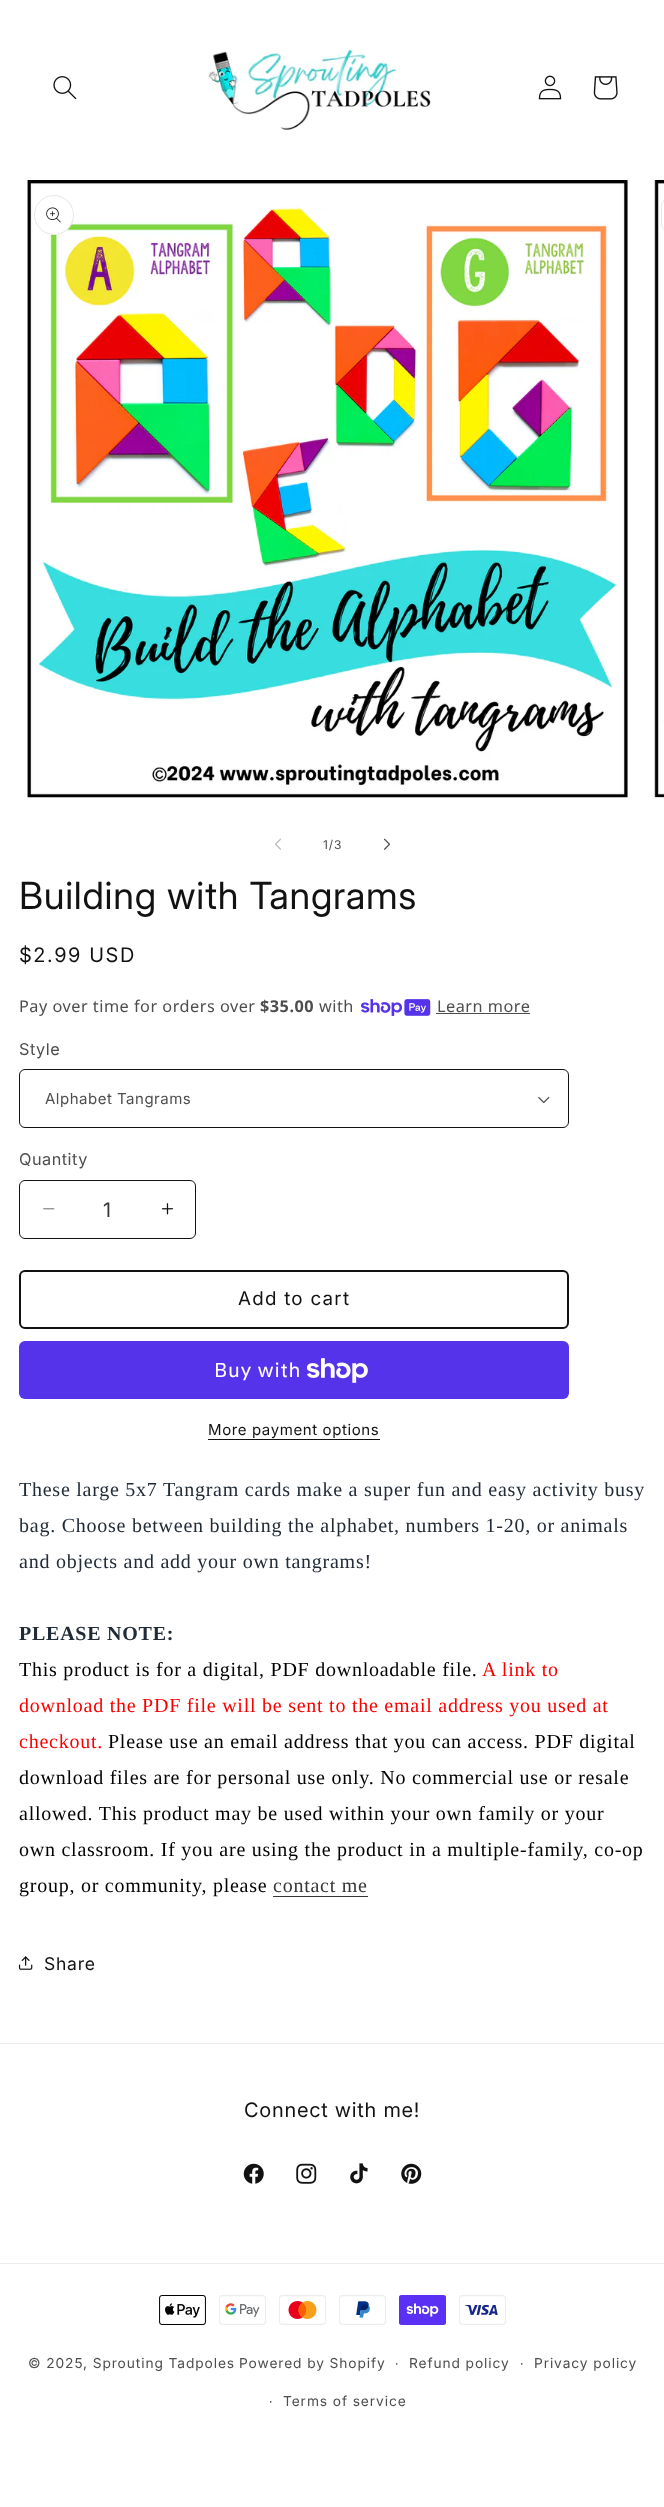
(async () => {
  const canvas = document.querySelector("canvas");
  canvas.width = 664;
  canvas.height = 2507;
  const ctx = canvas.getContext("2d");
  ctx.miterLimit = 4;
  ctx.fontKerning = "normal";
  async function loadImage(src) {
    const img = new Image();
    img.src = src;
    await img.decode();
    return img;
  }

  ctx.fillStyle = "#ffffff";
  ctx.fillRect(0, 0, 664, 2507);
  ctx.drawImage(await loadImage("img/1.png"), 53, 76, 24, 24);
  ctx.drawImage(await loadImage("img/2.png"), 208, 50, 223, 80);
  ctx.drawImage(await loadImage("img/3.png"), 538, 75, 24, 25);
  ctx.drawImage(await loadImage("img/4.png"), 593, 76, 25, 24);
  ctx.drawImage(await loadImage("img/5.png"), 27, 180, 601, 618);
  ctx.beginPath();
  ctx.arc(54, 215, 20, 0, Math.PI * 2);
  ctx.fill();
  ctx.beginPath();
  ctx.arc(54, 215, 19.5, 0, Math.PI * 2);
  ctx.strokeStyle = "rgba(18, 18, 18, 0.1)";
  ctx.stroke();
  ctx.drawImage(await loadImage("img/6.png"), 46, 207, 15, 16);
  ctx.drawImage(await loadImage("img/7.png"), 654, 180, 10, 618);
  ctx.beginPath();
  ctx.roundRect(661.5, 195.5, 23, 39, 19.5);
  ctx.strokeStyle = "#e7e7e7";
  ctx.stroke();
  ctx.drawImage(await loadImage("img/8.png"), 275, 838, 6, 12);
  ctx.drawImage(await loadImage("img/9.png"), 384, 838, 7, 12);
  ctx.drawImage(await loadImage("img/10.png"), 361, 999, 70, 17);
  ctx.fillStyle = "#4d4d4d";
  ctx.fillRect(436, 1013, 94, 1);
  ctx.drawImage(await loadImage("img/11.png"), 538, 1096, 12, 8);
  ctx.beginPath();
  ctx.roundRect(19.5, 1069.5, 549, 58, 5.5);
  ctx.strokeStyle = "#121212";
  ctx.stroke();
  ctx.drawImage(await loadImage("img/12.png"), 43, 1208, 12, 2);
  ctx.drawImage(await loadImage("img/13.png"), 161, 1203, 13, 12);
  ctx.beginPath();
  ctx.roundRect(19.5, 1180.5, 176, 58, 5.5);
  ctx.stroke();
  ctx.beginPath();
  ctx.roundRect(20, 1271, 548, 57, 5);
  ctx.lineWidth = 2;
  ctx.stroke();
  ctx.fillStyle = "#5433eb";
  ctx.beginPath();
  ctx.roundRect(19, 1341, 550, 58, 6);
  ctx.fill();
  ctx.drawImage(await loadImage("img/14.png"), 306, 1358, 62, 25);
  ctx.fillStyle = "#121212";
  ctx.fillRect(208, 1439, 172, 1);
  ctx.fillStyle = "#363636";
  ctx.fillRect(273, 1896, 95, 1);
  ctx.drawImage(await loadImage("img/15.png"), 18, 1956, 15, 14);
  ctx.fillStyle = "#ececec";
  ctx.fillRect(0, 2043, 664, 1);
  ctx.drawImage(await loadImage("img/16.png"), 243, 2163, 21, 21);
  ctx.drawImage(await loadImage("img/17.png"), 296, 2163, 21, 21);
  ctx.drawImage(await loadImage("img/18.png"), 350, 2163, 18, 21);
  ctx.drawImage(await loadImage("img/19.png"), 401, 2163, 21, 21);
  ctx.fillRect(0, 2263, 664, 1);
  ctx.drawImage(await loadImage("img/20.png"), 159, 2295, 47, 30);
  ctx.drawImage(await loadImage("img/21.png"), 219, 2295, 47, 30);
  ctx.drawImage(await loadImage("img/22.png"), 279, 2295, 47, 30);
  ctx.drawImage(await loadImage("img/23.png"), 339, 2295, 47, 30);
  ctx.drawImage(await loadImage("img/24.png"), 399, 2295, 47, 30);
  ctx.drawImage(await loadImage("img/25.png"), 459, 2295, 47, 30);
  ctx.letterSpacing = "0.9px";
  ctx.font = "12px Inter";
  ctx.fillStyle = "#4d4d4d";
  ctx.fillText("1/3", 323, 849);
  ctx.letterSpacing = "0.75px";
  ctx.font = "37.5px 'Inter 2'";
  ctx.fillStyle = "#121212";
  ctx.fillText("Building with Tangrams", 19, 909);
  ctx.letterSpacing = "1.6px";
  ctx.font = "20px 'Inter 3'";
  ctx.fillText("$2.99 USD", 19, 962);
  ctx.letterSpacing = "0.5px";
  ctx.font = "16.25px Noto Sans";
  ctx.fillStyle = "#4d4d4d";
  ctx.fillText("Pay over time for orders over", 19, 1012);
  ctx.font = "bold 16.25px Noto Sans";
  ctx.fillText("$35.00", 260, 1012);
  ctx.font = "16.25px Noto Sans";
  ctx.fillText("with", 319, 1012);
  ctx.fillText("Learn more", 437, 1012);
  ctx.font = "16.25px Inter";
  ctx.fillText("Style", 19, 1055);
  ctx.font = "15px Inter";
  ctx.fillText("Alphabet Tangrams", 45, 1104);
  ctx.font = "16.25px Inter";
  ctx.fillText("Quantity", 19, 1165);
  ctx.letterSpacing = "0px";
  ctx.font = "20px 'Inter 3'";
  ctx.fillStyle = "#363636";
  ctx.fillText("1", 103, 1217);
  ctx.letterSpacing = "1.25px";
  ctx.font = "18.75px Inter";
  ctx.fillStyle = "#121212";
  ctx.fillText("Add to cart", 238, 1305);
  ctx.letterSpacing = "0.75px";
  ctx.font = "20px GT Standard";
  ctx.fillStyle = "#ffffff";
  ctx.fillText("Buy with", 214, 1377);
  ctx.letterSpacing = "0.6px";
  ctx.font = "15px Inter";
  ctx.fillStyle = "#121212";
  ctx.fillText("More payment options", 208, 1435);
  ctx.letterSpacing = "0.75px";
  ctx.font = "20px Liberation Serif";
  ctx.fillStyle = "#212b36";
  for (const [text, x, y] of [
    ["These large 5x7 Tangram cards make a super fun and easy activity busy", 19, 1496],
    ["bag. Choose between building the alphabet, numbers 1-20, or animals", 19, 1532],
    ["and objects and add your own tangrams!", 19, 1568],
  ]) {
    ctx.fillText(text, x, y);
  }
  ctx.font = "bold 20px Liberation Serif";
  ctx.fillText("PLEASE NOTE:", 19, 1640);
  ctx.font = "20px Liberation Serif";
  ctx.fillStyle = "#000000";
  ctx.fillText("This product is for a digital, PDF downloadable file.", 19, 1676);
  ctx.fillStyle = "#fa0000";
  for (const [text, x, y] of [
    ["A link to", 482, 1676],
    ["download the PDF file will be sent to the email address you used at", 19, 1712],
    ["checkout.", 19, 1748],
  ]) {
    ctx.fillText(text, x, y);
  }
  ctx.fillStyle = "#000000";
  for (const [text, x, y] of [
    ["Please use an email address that you can access. PDF digital", 108, 1748],
    ["download files are for personal use only. No commercial use or resale", 19, 1784],
    ["allowed. This product may be used within your own family or your", 19, 1820],
    ["own classroom. If you are using the product in a multiple-family, co-op", 19, 1856],
    ["group, or community, please", 19, 1892],
  ]) {
    ctx.fillText(text, x, y);
  }
  ctx.fillStyle = "#363636";
  ctx.fillText("contact me", 273, 1892);
  ctx.font = "17.5px Inter";
  ctx.fillStyle = "#121212";
  ctx.fillText("Share", 44, 1970);
  ctx.font = "20px 'Inter 3'";
  ctx.fillText("Connect with me!", 244, 2117);
  ctx.letterSpacing = "0.9px";
  ctx.font = "13.75px Inter";
  ctx.fillStyle = "#4d4d4d";
  ctx.fillText("© 2025, Sprouting Tadpoles", 28, 2368);
  ctx.fillText("Powered by Shopify", 239, 2368);
  ctx.font = "12px Inter";
  ctx.fillText("·", 395, 2368);
  ctx.font = "13.75px Inter";
  ctx.fillText("Refund policy", 409, 2368);
  ctx.font = "12px Inter";
  ctx.fillText("·", 520, 2368);
  ctx.font = "13.75px Inter";
  ctx.fillText("Privacy policy", 534, 2368);
  ctx.font = "12px Inter";
  ctx.fillText("·", 269, 2406);
  ctx.font = "13.75px Inter";
  ctx.fillText("Terms of service", 283, 2406);
})();
